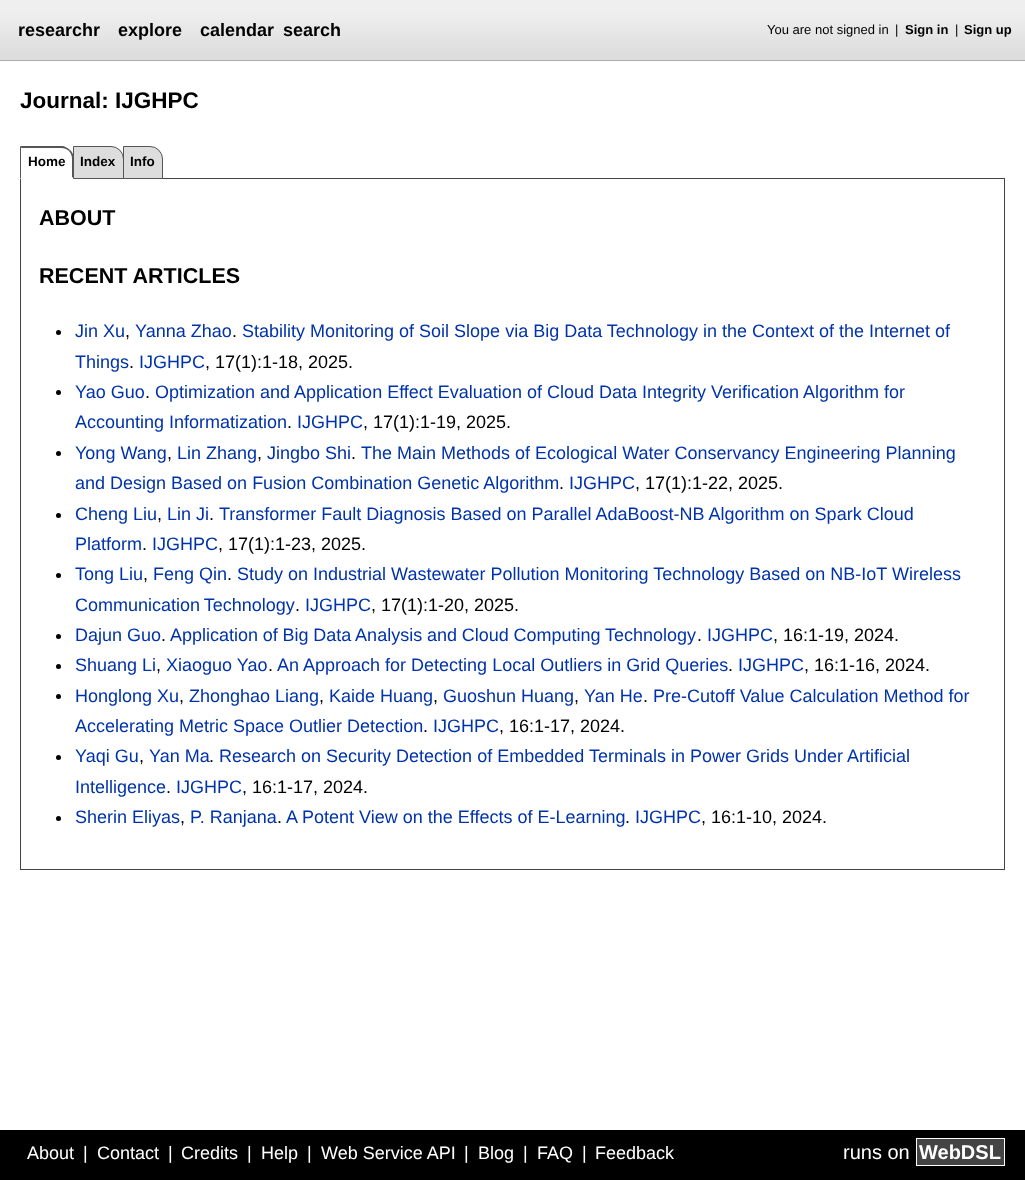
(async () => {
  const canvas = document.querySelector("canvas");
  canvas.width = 1025;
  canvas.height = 1180;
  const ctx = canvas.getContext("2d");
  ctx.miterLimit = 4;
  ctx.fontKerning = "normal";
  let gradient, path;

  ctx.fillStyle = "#ffffff";
  ctx.fillRect(0, 0, 1025, 1180);
  gradient = ctx.createLinearGradient(0, 60, 0, 0);
  gradient.addColorStop(0.1, "#dddddd");
  gradient.addColorStop(0.8, "#efefef");
  ctx.fillStyle = gradient;
  ctx.fillRect(0, 0, 1025, 60);
  ctx.fillStyle = "#aaaaaa";
  ctx.fillRect(0, 60, 1025, 1);
  ctx.strokeStyle = "#444444";
  ctx.strokeRect(20.5, 178.5, 984, 691);
  ctx.fillStyle = "#ffffff";
  ctx.beginPath();
  ctx.roundRect(20, 146, 54, 33, [0, 13, 0, 0]);
  ctx.fill();
  ctx.fillStyle = "#555555";
  path = new Path2D("M20 146H63C66 147 68 148 70 150L69 151C67 149 64 148 61 148H22Z");
  ctx.fill(path);
  path = new Path2D("M70 150C72 151.5 73 154 74 156.5V179L72 177V159C72 156 71 153 69 151Z");
  ctx.fill(path);
  ctx.fillStyle = "#ffffff";
  path = new Path2D("M74 179L72 177V178H21L20 179Z");
  ctx.fill(path);
  ctx.fillStyle = "#555555";
  path = new Path2D("M21 148H22L20 146V179L21 178Z");
  ctx.fill(path);
  ctx.fillStyle = "#dddddd";
  ctx.beginPath();
  ctx.roundRect(73.5, 146.5, 50, 32, [0, 12.5, 0, 0]);
  ctx.fill();
  ctx.strokeStyle = "#555555";
  ctx.stroke();
  ctx.beginPath();
  ctx.roundRect(123.5, 146.5, 39, 32, [0, 12.5, 0, 0]);
  ctx.fill();
  ctx.stroke();
  ctx.fillStyle = "#000000";
  ctx.beginPath();
  ctx.arc(58.5, 332.5, 2.5, 0, Math.PI * 2);
  ctx.fill();
  ctx.beginPath();
  ctx.arc(58.5, 392.5, 2.5, 0, Math.PI * 2);
  ctx.fill();
  ctx.beginPath();
  ctx.arc(58.5, 453.5, 2.5, 0, Math.PI * 2);
  ctx.fill();
  ctx.beginPath();
  ctx.arc(58.5, 515.5, 2.5, 0, Math.PI * 2);
  ctx.fill();
  ctx.beginPath();
  ctx.arc(58.5, 575.5, 2.5, 0, Math.PI * 2);
  ctx.fill();
  ctx.beginPath();
  ctx.arc(58.5, 636.5, 2.5, 0, Math.PI * 2);
  ctx.fill();
  ctx.beginPath();
  ctx.arc(58.5, 666.5, 2.5, 0, Math.PI * 2);
  ctx.fill();
  ctx.beginPath();
  ctx.arc(58.5, 696.5, 2.5, 0, Math.PI * 2);
  ctx.fill();
  ctx.beginPath();
  ctx.arc(58.5, 757.5, 2.5, 0, Math.PI * 2);
  ctx.fill();
  ctx.beginPath();
  ctx.arc(58.5, 818.5, 2.5, 0, Math.PI * 2);
  ctx.fill();
  for (const [x, y, w, h, color] of [
    [0, 1130, 1025, 50, "#000000"],
    [917, 1139, 87, 26, "#444444"],
    [916, 1138, 89, 1, "#ffffff"],
    [916, 1165, 45, 1, "#ffffff"],
    [916, 1138, 1, 28, "#ffffff"],
    [1004, 1138, 1, 28, "#ffffff"],
    [961, 1165, 44, 1, "#ffffff"],
  ]) {
    ctx.fillStyle = color;
    ctx.fillRect(x, y, w, h);
  }
  ctx.font = "bold 18px Liberation Sans";
  ctx.fillStyle = "#000000";
  for (const [text, x, y] of [
    ["researchr", 18, 36],
    ["explore", 118, 36],
    ["calendar", 200, 36],
    ["search", 283, 36],
  ]) {
    ctx.fillText(text, x, y);
  }
  ctx.font = "13px Liberation Sans";
  ctx.fillText("You are not signed in", 767, 34);
  ctx.fillText("|", 895, 34);
  ctx.font = "bold 13px Liberation Sans";
  ctx.fillText("Sign in", 905, 34);
  ctx.font = "13px Liberation Sans";
  ctx.fillText("|", 955, 34);
  ctx.font = "bold 13px Liberation Sans";
  ctx.fillText("Sign up", 964, 34);
  ctx.font = "bold 22.5px Liberation Sans";
  ctx.fillText("Journal: IJGHPC", 20, 108);
  ctx.font = "bold 13.5px Liberation Sans";
  for (const [text, x, y] of [
    ["Home", 28, 166],
    ["Index", 80, 166],
    ["Info", 130, 166],
  ]) {
    ctx.fillText(text, x, y);
  }
  ctx.font = "bold 21.5px Liberation Sans";
  ctx.fillText("ABOUT", 39, 225);
  ctx.fillText("RECENT ARTICLES", 39, 283);
  ctx.font = "18px Liberation Sans";
  ctx.fillStyle = "#0033aa";
  for (const [text, x, y] of [
    ["Jin Xu", 75, 337],
    ["Yanna Zhao", 135, 337],
    ["Stability Monitoring of Soil Slope via Big Data Technology in the Context of the Internet of", 242, 337],
  ]) {
    ctx.fillText(text, x, y);
  }
  ctx.fillStyle = "#000000";
  ctx.fillText(",", 125, 337);
  ctx.fillText(".", 232, 337);
  ctx.fillStyle = "#0033aa";
  ctx.fillText("Things", 75, 368);
  ctx.fillStyle = "#000000";
  ctx.fillText(".", 129, 368);
  ctx.fillStyle = "#0033aa";
  ctx.fillText("IJGHPC", 139, 368);
  ctx.fillStyle = "#000000";
  ctx.fillText(", 17(1):1-18, 2025.", 205, 368);
  ctx.fillStyle = "#0033aa";
  ctx.fillText("Yao Guo", 75, 398);
  ctx.fillText("Optimization and Application Effect Evaluation of Cloud Data Integrity Verification Algorithm for", 155, 398);
  ctx.fillStyle = "#000000";
  ctx.fillText(".", 145, 398);
  ctx.fillStyle = "#0033aa";
  ctx.fillText("Accounting Informatization", 75, 428);
  ctx.fillStyle = "#000000";
  ctx.fillText(".", 287, 428);
  ctx.fillStyle = "#0033aa";
  ctx.fillText("IJGHPC", 297, 428);
  ctx.fillStyle = "#000000";
  ctx.fillText(", 17(1):1-19, 2025.", 363, 428);
  ctx.fillStyle = "#0033aa";
  for (const [text, x, y] of [
    ["Yong Wang", 75, 459],
    ["Lin Zhang", 177, 459],
    ["Jingbo Shi", 267, 459],
    ["The Main Methods of Ecological Water Conservancy Engineering Planning", 361, 459],
  ]) {
    ctx.fillText(text, x, y);
  }
  ctx.fillStyle = "#000000";
  for (const [text, x, y] of [
    [",", 167, 459],
    [",", 257, 459],
    [".", 351, 459],
  ]) {
    ctx.fillText(text, x, y);
  }
  ctx.fillStyle = "#0033aa";
  ctx.fillText("and Design Based on Fusion Combination Genetic Algorithm", 75, 489);
  ctx.fillStyle = "#000000";
  ctx.fillText(".", 559, 489);
  ctx.fillStyle = "#0033aa";
  ctx.fillText("IJGHPC", 569, 489);
  ctx.fillStyle = "#000000";
  ctx.fillText(", 17(1):1-22, 2025.", 635, 489);
  ctx.fillStyle = "#0033aa";
  for (const [text, x, y] of [
    ["Cheng Liu", 75, 520],
    ["Lin Ji", 167, 520],
    ["Transformer Fault Diagnosis Based on Parallel AdaBoost-NB Algorithm on Spark Cloud", 219, 520],
  ]) {
    ctx.fillText(text, x, y);
  }
  ctx.fillStyle = "#000000";
  ctx.fillText(",", 157, 520);
  ctx.fillText(".", 209, 520);
  ctx.fillStyle = "#0033aa";
  ctx.fillText("Platform", 75, 550);
  ctx.fillStyle = "#000000";
  ctx.fillText(".", 142, 550);
  ctx.fillStyle = "#0033aa";
  ctx.fillText("IJGHPC", 152, 550);
  ctx.fillStyle = "#000000";
  ctx.fillText(", 17(1):1-23, 2025.", 218, 550);
  ctx.fillStyle = "#0033aa";
  for (const [text, x, y] of [
    ["Tong Liu", 75, 580],
    ["Feng Qin", 153, 580],
    ["Study on Industrial Wastewater Pollution Monitoring Technology Based on NB-IoT Wireless", 237, 580],
  ]) {
    ctx.fillText(text, x, y);
  }
  ctx.fillStyle = "#000000";
  ctx.fillText(",", 143, 580);
  ctx.fillText(".", 227, 580);
  ctx.wordSpacing = "-1px";
  ctx.fillStyle = "#0033aa";
  ctx.fillText("Communication Technology", 75, 611);
  ctx.wordSpacing = "0px";
  ctx.fillStyle = "#000000";
  ctx.fillText(".", 295, 611);
  ctx.fillStyle = "#0033aa";
  ctx.fillText("IJGHPC", 305, 611);
  ctx.fillStyle = "#000000";
  ctx.fillText(", 17(1):1-20, 2025.", 371, 611);
  ctx.fillStyle = "#0033aa";
  ctx.fillText("Dajun Guo", 75, 641);
  ctx.wordSpacing = "-0.25px";
  ctx.fillText("Application of Big Data Analysis and Cloud Computing Technology", 170, 641);
  ctx.wordSpacing = "0px";
  ctx.fillText("IJGHPC", 707, 641);
  ctx.fillStyle = "#000000";
  for (const [text, x, y] of [
    [", 16:1-19, 2024.", 773, 641],
    [".", 161, 641],
    [".", 697, 641],
  ]) {
    ctx.fillText(text, x, y);
  }
  ctx.fillStyle = "#0033aa";
  for (const [text, x, y] of [
    ["Shuang Li", 75, 671],
    ["Xiaoguo Yao", 166, 671],
    ["An Approach for Detecting Local Outliers in Grid Queries", 277, 671],
    ["IJGHPC", 738, 671],
  ]) {
    ctx.fillText(text, x, y);
  }
  ctx.fillStyle = "#000000";
  for (const [text, x, y] of [
    [", 16:1-16, 2024.", 804, 671],
    [",", 156, 671],
    [".", 268, 671],
    [".", 728, 671],
  ]) {
    ctx.fillText(text, x, y);
  }
  ctx.fillStyle = "#0033aa";
  for (const [text, x, y] of [
    ["Honglong Xu", 75, 702],
    ["Zhonghao Liang", 189, 702],
    ["Kaide Huang", 329, 702],
    ["Guoshun Huang", 443, 702],
    ["Yan He", 584, 702],
    ["Pre-Cutoff Value Calculation Method for", 653, 702],
  ]) {
    ctx.fillText(text, x, y);
  }
  ctx.fillStyle = "#000000";
  for (const [text, x, y] of [
    [",", 179, 702],
    [",", 319, 702],
    [",", 433, 702],
    [",", 574, 702],
    [".", 643, 702],
  ]) {
    ctx.fillText(text, x, y);
  }
  ctx.fillStyle = "#0033aa";
  ctx.fillText("Accelerating Metric Space Outlier Detection", 75, 732);
  ctx.fillStyle = "#000000";
  ctx.fillText(".", 423, 732);
  ctx.fillStyle = "#0033aa";
  ctx.fillText("IJGHPC", 433, 732);
  ctx.fillStyle = "#000000";
  ctx.fillText(", 16:1-17, 2024.", 499, 732);
  ctx.fillStyle = "#0033aa";
  for (const [text, x, y] of [
    ["Yaqi Gu", 75, 762],
    ["Yan Ma", 149, 762],
    ["Research on Security Detection of Embedded Terminals in Power Grids Under Artificial", 219, 762],
  ]) {
    ctx.fillText(text, x, y);
  }
  ctx.fillStyle = "#000000";
  ctx.fillText(",", 139, 762);
  ctx.fillText(".", 209, 762);
  ctx.fillStyle = "#0033aa";
  ctx.fillText("Intelligence", 75, 793);
  ctx.fillStyle = "#000000";
  ctx.fillText(".", 166, 793);
  ctx.fillStyle = "#0033aa";
  ctx.fillText("IJGHPC", 176, 793);
  ctx.fillStyle = "#000000";
  ctx.fillText(", 16:1-17, 2024.", 242, 793);
  ctx.fillStyle = "#0033aa";
  for (const [text, x, y] of [
    ["Sherin Eliyas", 75, 823],
    ["P. Ranjana", 190, 823],
    ["A Potent View on the Effects of E-Learning", 286, 823],
    ["IJGHPC", 635, 823],
  ]) {
    ctx.fillText(text, x, y);
  }
  ctx.fillStyle = "#000000";
  for (const [text, x, y] of [
    [", 16:1-10, 2024.", 701, 823],
    [",", 180, 823],
    [".", 277, 823],
    [".", 625, 823],
  ]) {
    ctx.fillText(text, x, y);
  }
  ctx.fillStyle = "#ffffff";
  for (const [text, x, y] of [
    ["About", 27, 1159],
    ["|", 83, 1159],
    ["Contact", 97, 1159],
    ["|", 168, 1159],
    ["Credits", 181, 1159],
    ["|", 247, 1159],
    ["Help", 261, 1159],
    ["|", 307, 1159],
    ["Web Service API", 321, 1159],
    ["|", 464, 1159],
    ["Blog", 478, 1159],
    ["|", 523, 1159],
    ["FAQ", 537, 1159],
    ["|", 582, 1159],
    ["Feedback", 595, 1159],
  ]) {
    ctx.fillText(text, x, y);
  }
  ctx.font = "20px Liberation Sans";
  ctx.fillText("runs on", 843, 1159);
  ctx.font = "bold 20px Liberation Sans";
  ctx.fillText("WebDSL", 919, 1159);
})();
